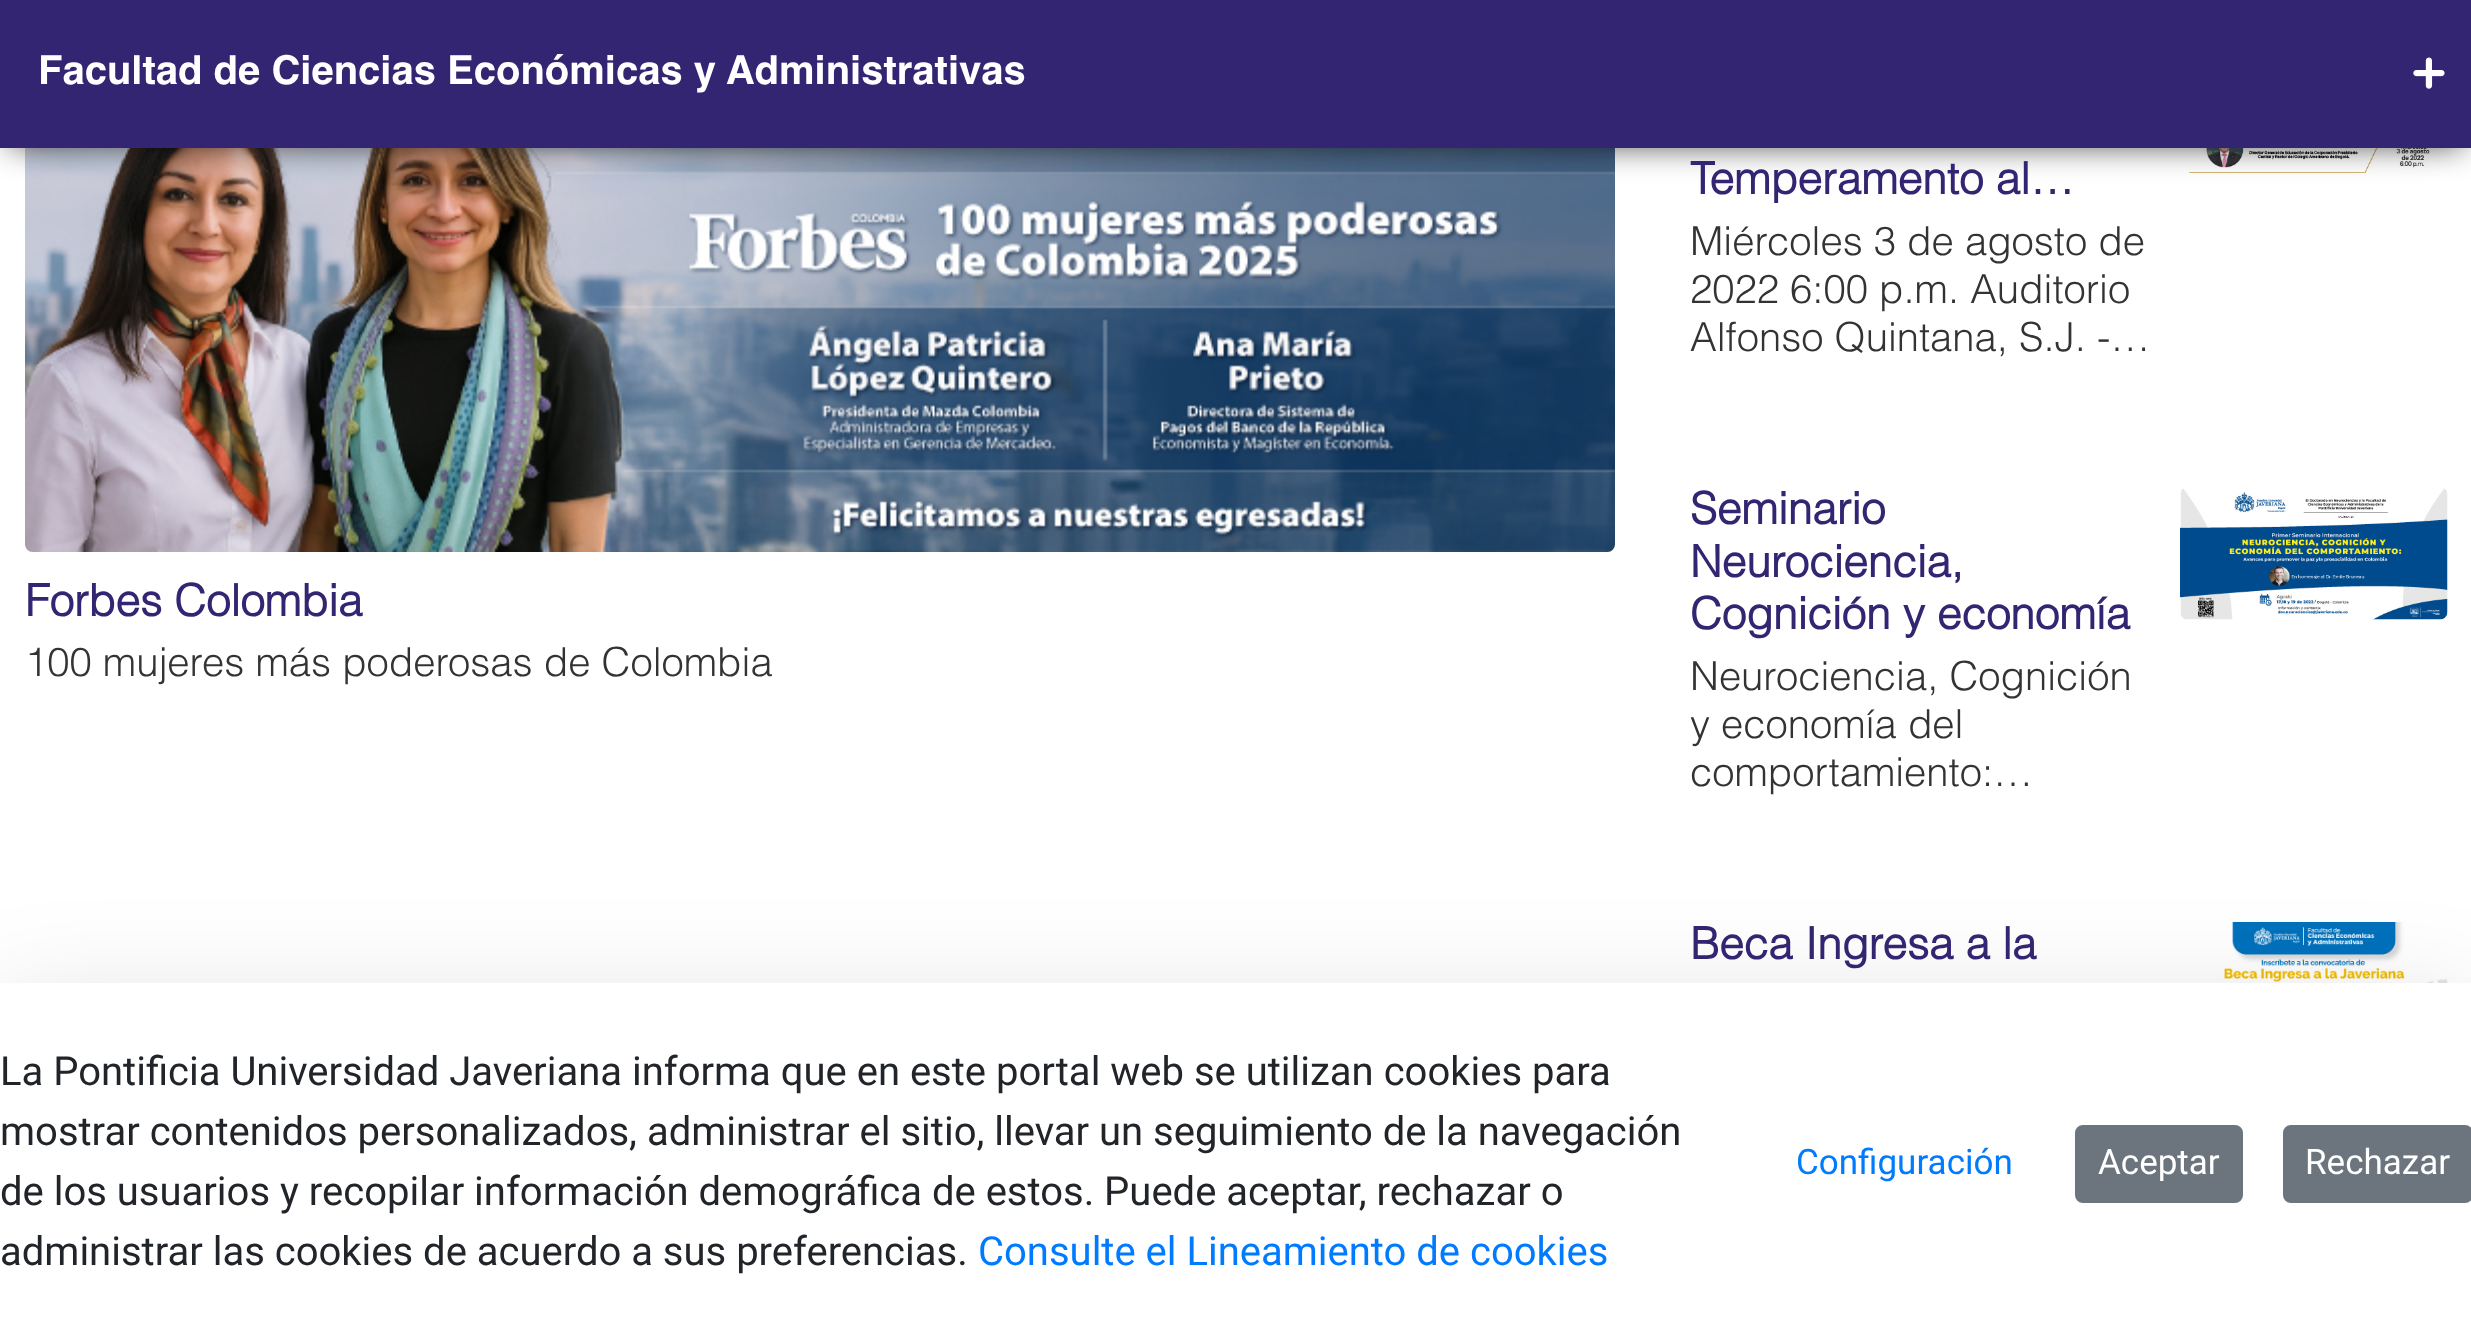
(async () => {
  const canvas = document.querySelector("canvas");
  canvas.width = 2471;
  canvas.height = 1341;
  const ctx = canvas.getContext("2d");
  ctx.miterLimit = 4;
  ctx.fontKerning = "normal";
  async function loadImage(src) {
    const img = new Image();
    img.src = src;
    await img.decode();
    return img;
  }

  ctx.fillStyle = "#ffffff";
  ctx.fillRect(0, 0, 2471, 1341);
  ctx.drawImage(await loadImage("img/2.png"), 25, 148, 1590, 404);
  ctx.drawImage(await loadImage("img/3.png"), 2188, 148, 260, 25);
  ctx.fillStyle = "rgba(0, 0, 0, 0.75)";
  ctx.filter = "blur(16px)";
  ctx.beginPath();
  ctx.rect(10, 18, 2453, 127);
  ctx.fill();
  ctx.filter = "none";
  ctx.fillStyle = "#342572";
  ctx.fillRect(0, 0, 2471, 148);
  ctx.drawImage(await loadImage("img/1.png"), 2413, 57, 32, 32);
  ctx.drawImage(await loadImage("img/4.png"), 2180, 488, 268, 132);
  ctx.drawImage(await loadImage("img/5.png"), 2180, 922, 268, 61);
  ctx.fillStyle = "rgba(0, 0, 0, 0.18)";
  ctx.filter = "blur(60px)";
  ctx.beginPath();
  ctx.rect(0, 1023, 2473, 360);
  ctx.fill();
  ctx.filter = "none";
  ctx.fillStyle = "#ffffff";
  ctx.fillRect(0, 983, 2471, 358);
  ctx.fillStyle = "#6c757d";
  ctx.beginPath();
  ctx.roundRect(2076.5, 1126.5, 165, 75, 6.5);
  ctx.fill();
  ctx.strokeStyle = "#6c757d";
  ctx.lineWidth = 3;
  ctx.stroke();
  ctx.beginPath();
  ctx.roundRect(2284.5, 1126.5, 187, 75, 6.5);
  ctx.fill();
  ctx.stroke();
  ctx.font = "bold 40px 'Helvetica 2'";
  ctx.fillStyle = "#ffffff";
  ctx.fillText("Facultad de Ciencias Económicas y Administrativas", 38, 84);
  ctx.font = "bold 44px Helvetica";
  ctx.fillStyle = "#342572";
  ctx.fillText("Forbes Colombia", 25, 616);
  ctx.font = "300 40px Helvetica";
  ctx.fillStyle = "#333333";
  ctx.fillText("100 mujeres más poderosas de Colombia", 25, 676);
  ctx.font = "bold 44px Helvetica";
  ctx.fillStyle = "#342572";
  ctx.fillText("Temperamento al…", 1690, 194);
  ctx.font = "300 40px Helvetica";
  ctx.fillStyle = "#333333";
  for (const [text, x, y] of [
    ["Miércoles 3 de agosto de", 1690, 255],
    ["2022 6:00 p.m. Auditorio", 1690, 303],
    ["Alfonso Quintana, S.J. -…", 1690, 351],
  ]) {
    ctx.fillText(text, x, y);
  }
  ctx.font = "bold 44px Helvetica";
  ctx.fillStyle = "#342572";
  for (const [text, x, y] of [
    ["Seminario", 1690, 524],
    ["Neurociencia,", 1690, 577],
    ["Cognición y economía", 1690, 629],
  ]) {
    ctx.fillText(text, x, y);
  }
  ctx.font = "300 40px Helvetica";
  ctx.fillStyle = "#333333";
  for (const [text, x, y] of [
    ["Neurociencia, Cognición", 1690, 690],
    ["y economía del", 1690, 738],
    ["comportamiento:…", 1690, 786],
  ]) {
    ctx.fillText(text, x, y);
  }
  ctx.font = "bold 44px Helvetica";
  ctx.fillStyle = "#342572";
  ctx.fillText("Beca Ingresa a la", 1690, 959);
  ctx.font = "40px Roboto";
  ctx.fillStyle = "#212529";
  for (const [text, x, y] of [
    ["La Pontificia Universidad Javeriana informa que en este portal web se utilizan cookies para", 0, 1085],
    ["mostrar contenidos personalizados, administrar el sitio, llevar un seguimiento de la navegación", 0, 1145],
    ["de los usuarios y recopilar información demográfica de estos. Puede aceptar, rechazar o", 0, 1205],
    ["administrar las cookies de acuerdo a sus preferencias.", 0, 1265],
  ]) {
    ctx.fillText(text, x, y);
  }
  ctx.fillStyle = "#007bff";
  ctx.fillText("Consulte el Lineamiento de cookies", 978, 1265);
  ctx.font = "35px Roboto";
  ctx.fillText("Configuración", 1796, 1174);
  ctx.fillStyle = "#ffffff";
  ctx.fillText("Aceptar", 2098, 1174);
  ctx.fillText("Rechazar", 2305, 1174);
})();
